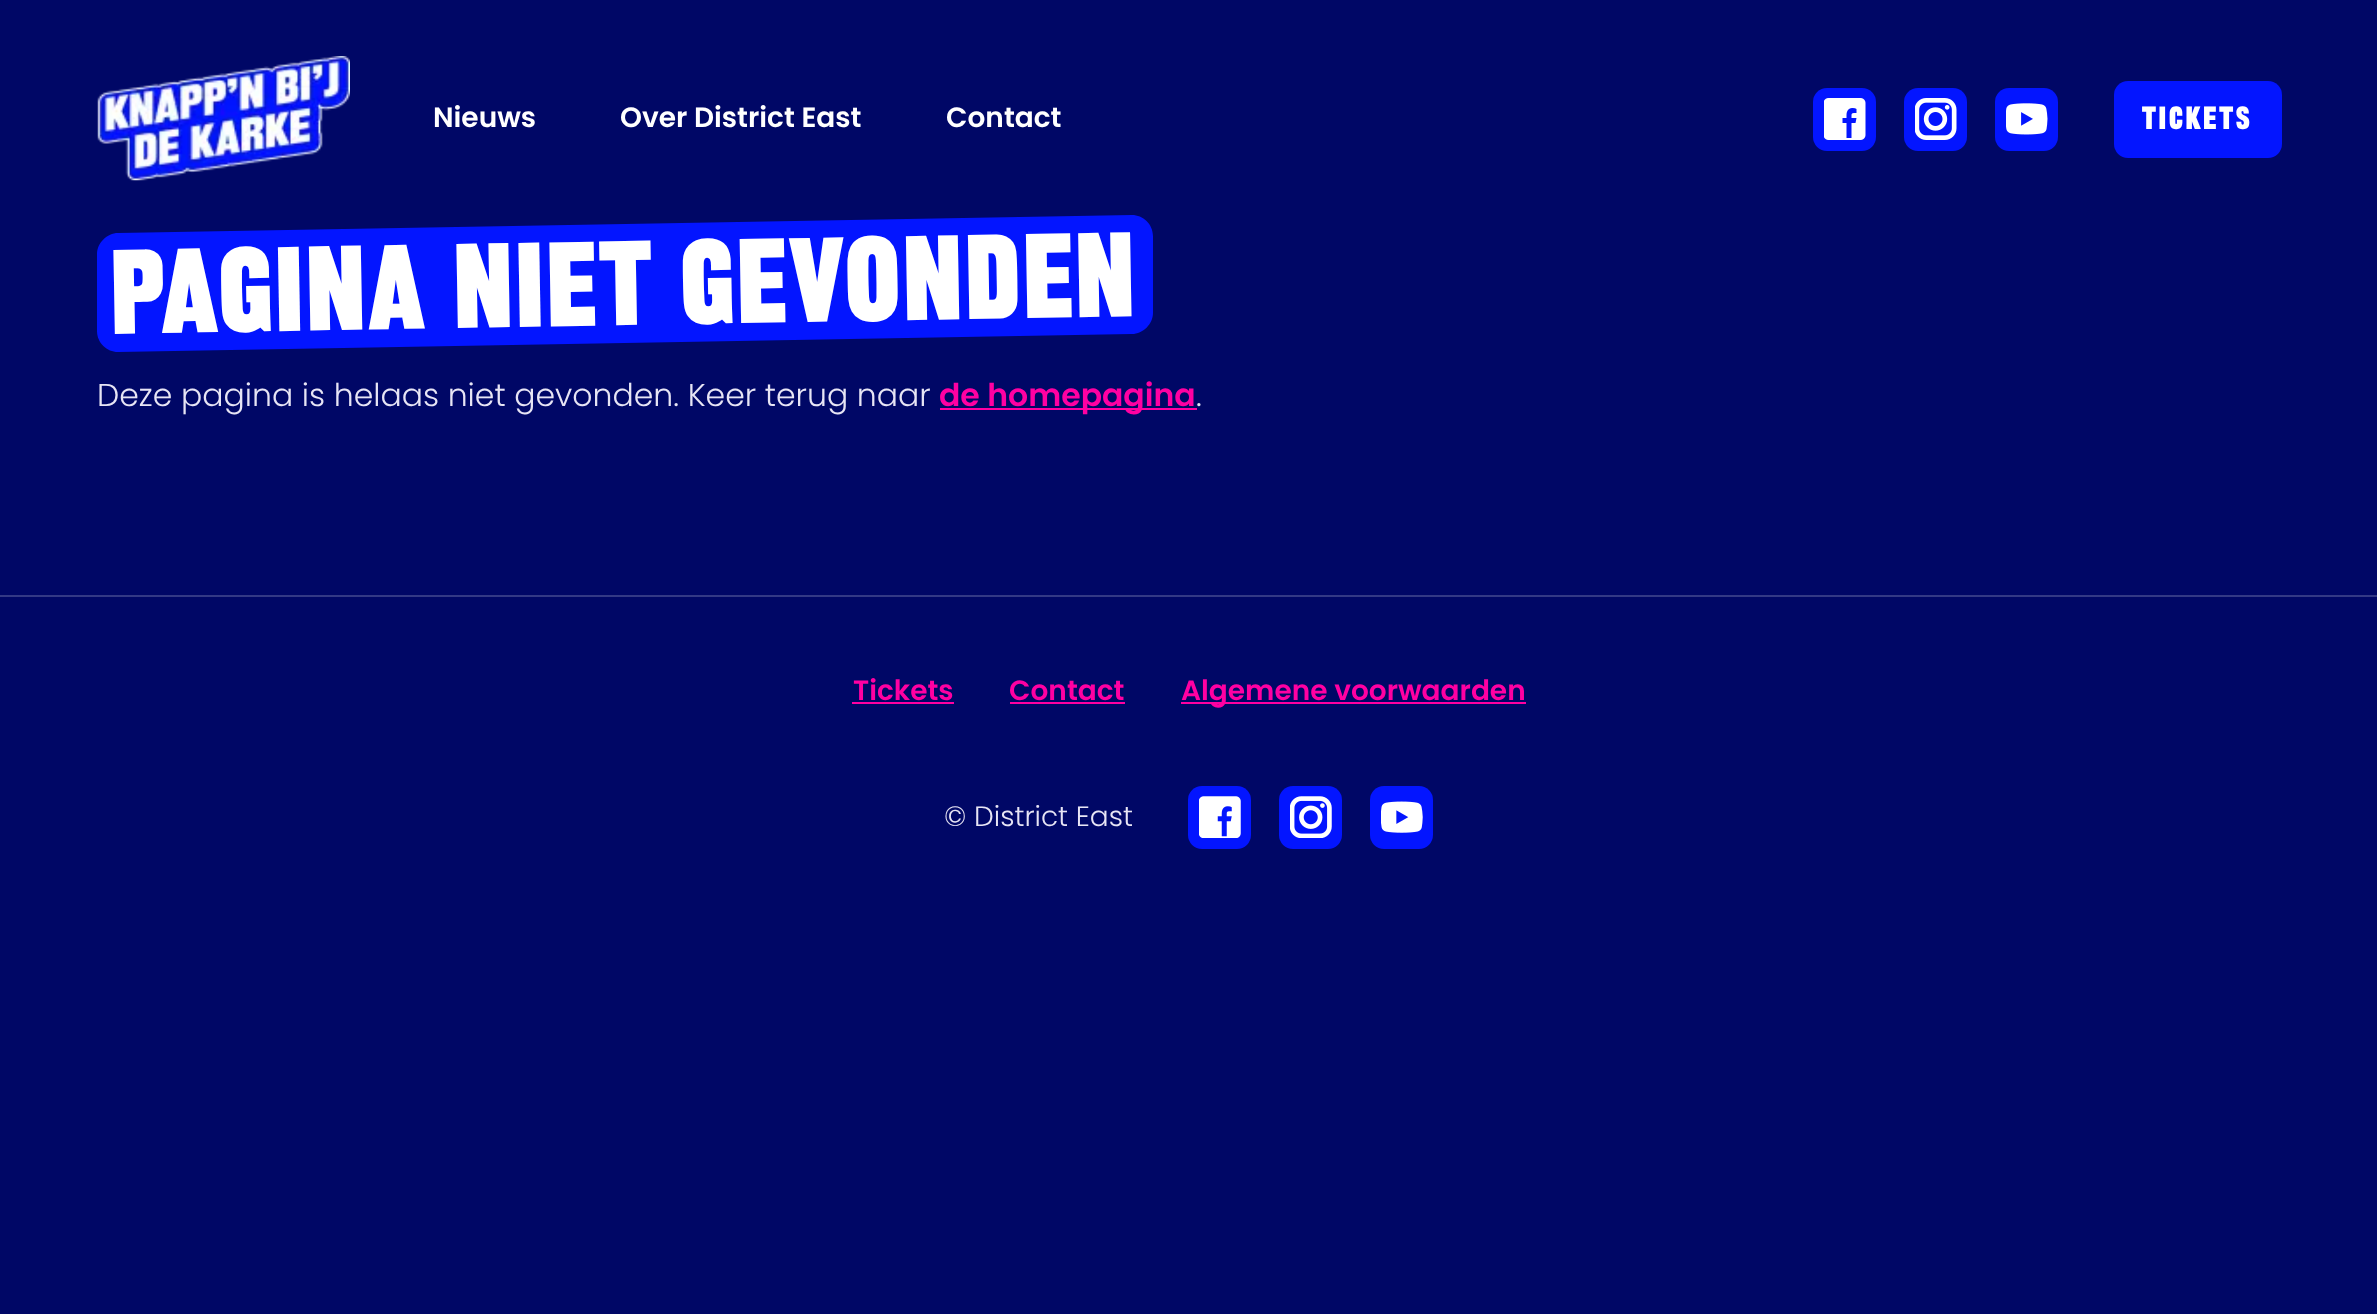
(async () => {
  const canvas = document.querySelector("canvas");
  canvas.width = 2377;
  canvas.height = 1314;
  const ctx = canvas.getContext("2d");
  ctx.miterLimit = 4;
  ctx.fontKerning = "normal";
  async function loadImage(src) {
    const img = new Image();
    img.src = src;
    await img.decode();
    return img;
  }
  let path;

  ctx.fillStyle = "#000766";
  ctx.fillRect(0, 0, 2377, 1314);
  ctx.drawImage(await loadImage("img/1.png"), 97, 56, 253, 125);
  ctx.fillStyle = "#0315ff";
  ctx.beginPath();
  ctx.roundRect(1813, 88, 63, 63, 14);
  ctx.fill();
  ctx.drawImage(await loadImage("img/2.png"), 1824, 98, 42, 42);
  ctx.beginPath();
  ctx.roundRect(1904, 88, 63, 63, 14);
  ctx.fill();
  ctx.drawImage(await loadImage("img/3.png"), 1915, 98, 42, 42);
  ctx.beginPath();
  ctx.roundRect(1995, 88, 63, 63, 14);
  ctx.fill();
  ctx.drawImage(await loadImage("img/4.png"), 2006, 103, 42, 32);
  ctx.beginPath();
  ctx.roundRect(2114, 81, 168, 77, 14);
  ctx.fill();
  path = new Path2D("M118 233L1132 215C1143 215 1153 224 1153 236V313C1153 324 1143 334 1132 334L118 352C107 352 97 343 97 331V254C97 243 107 233 118 233Z");
  ctx.fill(path);
  for (const [x, y, w, h, color] of [
    [940, 408, 257, 2, "#ff00a2"],
    [0, 595, 2377, 2, "#333985"],
    [852, 702, 102, 2, "#ff00a2"],
    [1010, 702, 115, 2, "#ff00a2"],
    [1181, 702, 345, 2, "#ff00a2"],
  ]) {
    ctx.fillStyle = color;
    ctx.fillRect(x, y, w, h);
  }
  ctx.fillStyle = "#0315ff";
  ctx.beginPath();
  ctx.roundRect(1188, 786, 63, 63, 14);
  ctx.fill();
  ctx.drawImage(await loadImage("img/5.png"), 1199, 796, 42, 42);
  ctx.beginPath();
  ctx.roundRect(1279, 786, 63, 63, 14);
  ctx.fill();
  ctx.drawImage(await loadImage("img/6.png"), 1290, 796, 42, 42);
  ctx.beginPath();
  ctx.roundRect(1370, 786, 63, 63, 14);
  ctx.fill();
  ctx.drawImage(await loadImage("img/7.png"), 1381, 801, 42, 32);
  ctx.font = "600 28px Poppins";
  ctx.fillStyle = "#ffffff";
  for (const [text, x, y] of [
    ["Nieuws", 433, 127],
    ["Over District East", 620, 127],
    ["Contact", 946, 127],
  ]) {
    ctx.fillText(text, x, y);
  }
  ctx.letterSpacing = "2.75px";
  ctx.font = "600 28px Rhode";
  ctx.fillText("TICKETS", 2142, 129);
  ctx.letterSpacing = "2.6px";
  ctx.font = "600 105px Rhode";
  ctx.save();
  ctx.translate(111, 334);
  ctx.rotate(-1 * Math.PI / 180);
  ctx.fillText("PAGINA NIET GEVONDEN", 0, 0);
  ctx.restore();
  ctx.letterSpacing = "0px";
  ctx.font = "300 31.5px Poppins";
  ctx.fillStyle = "#e7e5f5";
  ctx.fillText("Deze pagina is helaas niet gevonden. Keer terug naar", 97, 406);
  ctx.font = "600 31.5px Poppins";
  ctx.fillStyle = "#ff00a2";
  ctx.fillText("de homepagina", 939, 406);
  ctx.font = "300 31.5px Poppins";
  ctx.fillStyle = "#e7e5f5";
  ctx.fillText(".", 1196, 406);
  ctx.font = "600 28px Poppins";
  ctx.fillStyle = "#ff00a2";
  for (const [text, x, y] of [
    ["Tickets", 853, 700],
    ["Contact", 1009, 700],
    ["Algemene voorwaarden", 1181, 700],
  ]) {
    ctx.fillText(text, x, y);
  }
  ctx.font = "300 28px Poppins";
  ctx.fillStyle = "#e7e5f5";
  ctx.fillText("© District East", 944, 826);
})();
